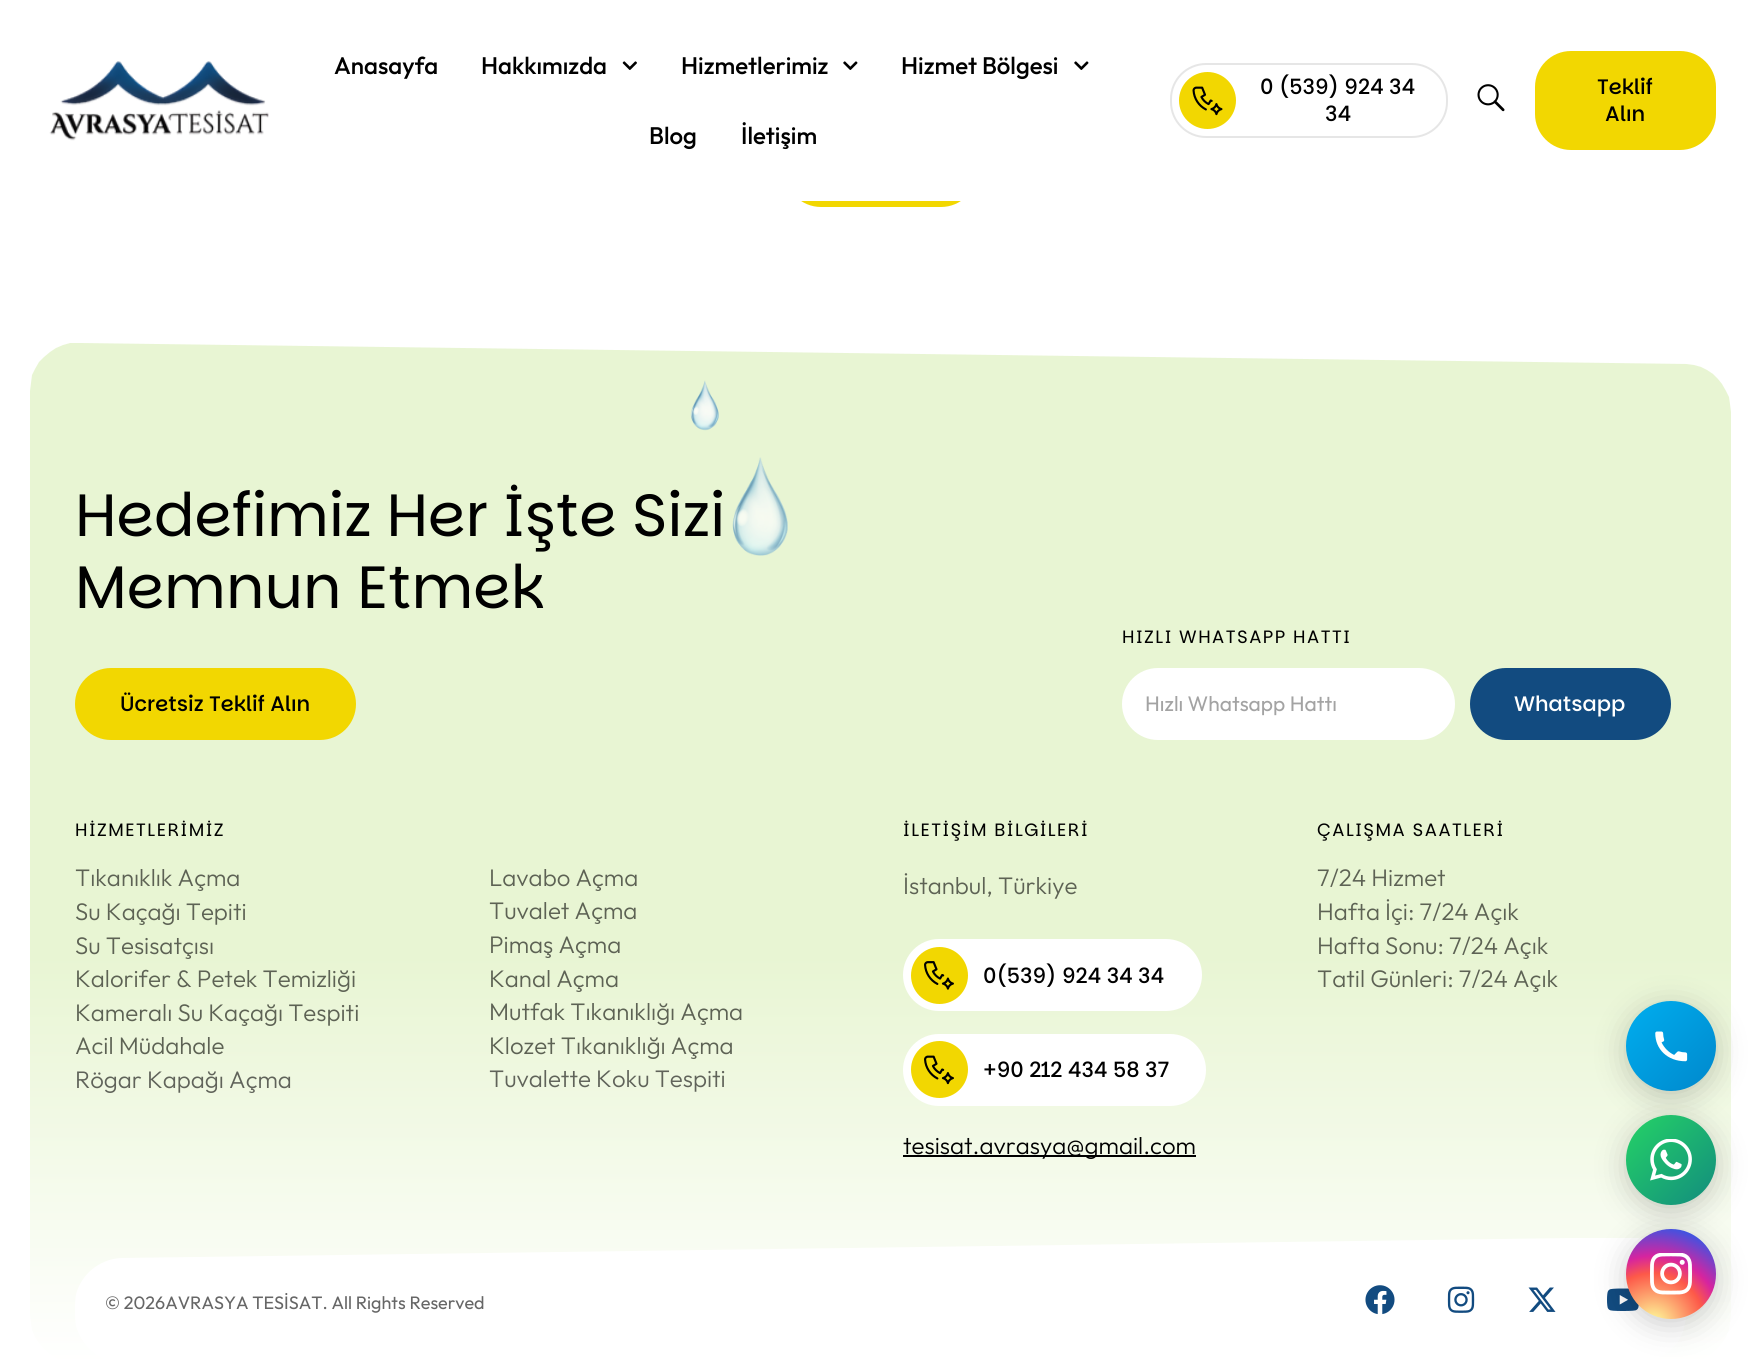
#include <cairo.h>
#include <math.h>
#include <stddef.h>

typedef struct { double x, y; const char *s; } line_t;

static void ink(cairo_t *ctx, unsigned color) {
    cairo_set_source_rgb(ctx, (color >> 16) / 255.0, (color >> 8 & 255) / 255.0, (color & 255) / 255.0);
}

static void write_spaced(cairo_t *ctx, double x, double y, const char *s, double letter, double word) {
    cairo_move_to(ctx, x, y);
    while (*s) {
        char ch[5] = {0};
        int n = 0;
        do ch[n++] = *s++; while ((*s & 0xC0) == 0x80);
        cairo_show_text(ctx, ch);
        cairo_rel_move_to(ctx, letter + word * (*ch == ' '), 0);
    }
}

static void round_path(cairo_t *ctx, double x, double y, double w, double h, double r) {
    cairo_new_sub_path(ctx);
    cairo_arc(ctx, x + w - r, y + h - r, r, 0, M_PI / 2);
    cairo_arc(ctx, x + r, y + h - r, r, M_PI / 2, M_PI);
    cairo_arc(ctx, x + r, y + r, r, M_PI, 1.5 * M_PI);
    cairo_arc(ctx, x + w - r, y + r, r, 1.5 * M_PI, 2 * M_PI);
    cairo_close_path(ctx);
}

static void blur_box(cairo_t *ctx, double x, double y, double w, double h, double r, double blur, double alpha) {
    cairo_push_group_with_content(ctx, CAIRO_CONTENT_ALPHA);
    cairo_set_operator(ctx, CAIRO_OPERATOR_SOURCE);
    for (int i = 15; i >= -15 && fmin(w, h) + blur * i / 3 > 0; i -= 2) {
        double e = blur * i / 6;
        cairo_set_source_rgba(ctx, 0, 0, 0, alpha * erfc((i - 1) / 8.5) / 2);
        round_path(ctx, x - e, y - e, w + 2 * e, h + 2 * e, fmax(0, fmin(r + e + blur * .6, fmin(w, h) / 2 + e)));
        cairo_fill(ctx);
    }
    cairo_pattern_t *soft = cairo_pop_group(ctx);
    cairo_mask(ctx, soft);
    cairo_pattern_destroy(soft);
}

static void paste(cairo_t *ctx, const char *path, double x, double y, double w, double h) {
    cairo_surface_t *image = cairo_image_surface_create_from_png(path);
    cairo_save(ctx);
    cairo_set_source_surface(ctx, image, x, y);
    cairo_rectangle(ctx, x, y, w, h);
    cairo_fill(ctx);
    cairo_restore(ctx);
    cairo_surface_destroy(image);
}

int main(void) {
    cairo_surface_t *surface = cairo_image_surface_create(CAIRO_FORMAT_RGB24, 1761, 1363);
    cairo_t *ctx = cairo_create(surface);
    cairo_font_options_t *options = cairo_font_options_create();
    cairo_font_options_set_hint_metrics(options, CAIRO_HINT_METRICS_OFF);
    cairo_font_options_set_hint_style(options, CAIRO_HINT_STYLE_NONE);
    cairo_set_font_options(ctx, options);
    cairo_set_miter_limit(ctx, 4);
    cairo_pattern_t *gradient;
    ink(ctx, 0xFFFFFF);
    cairo_paint(ctx);
    ink(ctx, 0xF2D701);
    round_path(ctx, 785, 134, 192, 73, 36);
    cairo_fill(ctx);
    ink(ctx, 0xFFFFFF);
    cairo_rectangle(ctx, 785, 134, 192, 67);
    cairo_fill(ctx);
    paste(ctx, "media/1.png", 49, 61, 220, 80);
    cairo_select_font_face(ctx, "Outfit Medium", CAIRO_FONT_SLANT_NORMAL, CAIRO_FONT_WEIGHT_NORMAL);
    cairo_set_font_size(ctx, 24);
    ink(ctx, 0x000000);
    cairo_move_to(ctx, 334, 74);
    cairo_show_text(ctx, "Anasayfa");
    cairo_move_to(ctx, 481, 74);
    cairo_show_text(ctx, "Hakkımızda");
    paste(ctx, "media/2.png", 622, 61, 15, 9);
    cairo_move_to(ctx, 681, 74);
    cairo_show_text(ctx, "Hizmetlerimiz");
    paste(ctx, "media/3.png", 843, 61, 15, 9);
    cairo_move_to(ctx, 901, 74);
    cairo_show_text(ctx, "Hizmet Bölgesi");
    paste(ctx, "media/3.png", 1074, 61, 15, 9);
    cairo_move_to(ctx, 649, 144);
    cairo_show_text(ctx, "Blog");
    cairo_move_to(ctx, 741, 144);
    cairo_show_text(ctx, "İletişim");
    round_path(ctx, 1171, 64, 276, 73, 35);
    ink(ctx, 0xE6E6E6);
    cairo_stroke(ctx);
    ink(ctx, 0xF2D701);
    cairo_arc(ctx, 1207.5, 100.5, 28.5, 0, 2 * M_PI);
    cairo_fill(ctx);
    paste(ctx, "media/4.png", 1192, 86, 31, 30);
    cairo_select_font_face(ctx, "Parkinsans Medium", CAIRO_FONT_SLANT_NORMAL, CAIRO_FONT_WEIGHT_NORMAL);
    cairo_set_font_size(ctx, 21);
    ink(ctx, 0x000000);
    cairo_move_to(ctx, 1260, 94);
    cairo_show_text(ctx, "0 (539) 924 34");
    cairo_move_to(ctx, 1325, 121);
    cairo_show_text(ctx, "34");
    paste(ctx, "media/5.png", 1477, 84, 28, 28);
    ink(ctx, 0xF2D701);
    round_path(ctx, 1535, 51, 181, 99, 36);
    cairo_fill(ctx);
    ink(ctx, 0x000000);
    cairo_move_to(ctx, 1597, 94);
    cairo_show_text(ctx, "Teklif");
    cairo_move_to(ctx, 1605, 121);
    cairo_show_text(ctx, "Alın");
    gradient = cairo_pattern_create_linear(881, 342, 881, 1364);
    cairo_pattern_add_color_stop_rgba(gradient, 0.6, 0.91, 0.961, 0.827, 1);
    cairo_pattern_add_color_stop_rgba(gradient, 1, 1, 1, 1, 1);
    cairo_set_source(ctx, gradient);
    cairo_pattern_destroy(gradient);
    cairo_new_path(ctx);
    cairo_move_to(ctx, 78, 343);
    cairo_line_to(ctx, 70, 343);
    cairo_line_to(ctx, 63, 345);
    cairo_line_to(ctx, 56, 348);
    cairo_line_to(ctx, 50, 352);
    cairo_line_to(ctx, 44, 357);
    cairo_line_to(ctx, 39, 362);
    cairo_line_to(ctx, 35, 369);
    cairo_line_to(ctx, 32, 375);
    cairo_line_to(ctx, 31, 383);
    cairo_line_to(ctx, 30, 391);
    cairo_line_to(ctx, 30, 1315);
    cairo_line_to(ctx, 31, 1323);
    cairo_line_to(ctx, 32, 1330);
    cairo_line_to(ctx, 35, 1337);
    cairo_line_to(ctx, 39, 1343);
    cairo_line_to(ctx, 44, 1349);
    cairo_line_to(ctx, 50, 1354);
    cairo_line_to(ctx, 56, 1358);
    cairo_line_to(ctx, 63, 1361);
    cairo_line_to(ctx, 70, 1362);
    cairo_line_to(ctx, 78, 1363);
    cairo_line_to(ctx, 1683, 1363);
    cairo_line_to(ctx, 1691, 1362);
    cairo_line_to(ctx, 1698, 1361);
    cairo_line_to(ctx, 1705, 1358);
    cairo_line_to(ctx, 1711, 1354);
    cairo_line_to(ctx, 1717, 1349);
    cairo_line_to(ctx, 1722, 1343);
    cairo_line_to(ctx, 1726, 1337);
    cairo_line_to(ctx, 1729, 1330);
    cairo_line_to(ctx, 1730, 1323);
    cairo_line_to(ctx, 1731, 1315);
    cairo_line_to(ctx, 1731, 412);
    cairo_line_to(ctx, 1730, 404);
    cairo_line_to(ctx, 1729, 397);
    cairo_line_to(ctx, 1726, 391);
    cairo_line_to(ctx, 1722, 384);
    cairo_line_to(ctx, 1718, 379);
    cairo_line_to(ctx, 1713, 374);
    cairo_line_to(ctx, 1707, 370);
    cairo_line_to(ctx, 1701, 367);
    cairo_line_to(ctx, 1694, 365);
    cairo_line_to(ctx, 1686, 364);
    cairo_close_path(ctx);
    cairo_fill(ctx);
    paste(ctx, "media/6.png", 690, 380, 29, 51);
    cairo_select_font_face(ctx, "Parkinsans", CAIRO_FONT_SLANT_NORMAL, CAIRO_FONT_WEIGHT_NORMAL);
    cairo_set_font_size(ctx, 60);
    ink(ctx, 0x000000);
    write_spaced(ctx, 75, 536, "Hedefimiz Her İşte Sizi", 0, -1);
    cairo_move_to(ctx, 75, 608);
    cairo_show_text(ctx, "Memnun Etmek");
    paste(ctx, "media/7.png", 732, 457, 56, 99);
    ink(ctx, 0xF2D701);
    round_path(ctx, 75, 668, 281, 72, 36);
    cairo_fill(ctx);
    cairo_select_font_face(ctx, "Parkinsans Medium", CAIRO_FONT_SLANT_NORMAL, CAIRO_FONT_WEIGHT_NORMAL);
    cairo_set_font_size(ctx, 21);
    ink(ctx, 0x000000);
    cairo_move_to(ctx, 120, 711);
    cairo_show_text(ctx, "Ücretsiz Teklif Alın");
    cairo_select_font_face(ctx, "Parkinsans", CAIRO_FONT_SLANT_NORMAL, CAIRO_FONT_WEIGHT_NORMAL);
    cairo_set_font_size(ctx, 18);
    write_spaced(ctx, 1122, 643, "HIZLI WHATSAPP HATTI", 1.5, 0);
    ink(ctx, 0xFFFFFF);
    round_path(ctx, 1122, 668, 333, 72, 36);
    cairo_fill(ctx);
    cairo_select_font_face(ctx, "Outfit", CAIRO_FONT_SLANT_NORMAL, CAIRO_FONT_WEIGHT_NORMAL);
    cairo_set_font_size(ctx, 21);
    ink(ctx, 0xA3A3A3);
    cairo_move_to(ctx, 1145, 711);
    cairo_show_text(ctx, "Hızlı Whatsapp Hattı");
    ink(ctx, 0x124B80);
    round_path(ctx, 1470, 668, 201, 72, 36);
    cairo_fill(ctx);
    cairo_select_font_face(ctx, "Parkinsans Medium", CAIRO_FONT_SLANT_NORMAL, CAIRO_FONT_WEIGHT_NORMAL);
    ink(ctx, 0xFFFFFF);
    cairo_move_to(ctx, 1514, 711);
    cairo_show_text(ctx, "Whatsapp");
    cairo_select_font_face(ctx, "Parkinsans", CAIRO_FONT_SLANT_NORMAL, CAIRO_FONT_WEIGHT_NORMAL);
    cairo_set_font_size(ctx, 18);
    ink(ctx, 0x000000);
    write_spaced(ctx, 75, 836, "HİZMETLERİMİZ", 1.5, 0);
    cairo_select_font_face(ctx, "Outfit Light", CAIRO_FONT_SLANT_NORMAL, CAIRO_FONT_WEIGHT_NORMAL);
    cairo_set_font_size(ctx, 24);
    ink(ctx, 0x5D6254);
    {
        static const line_t items[] = {
            {75, 886, "Tıkanıklık Açma"},
            {75, 920, "Su Kaçağı Tepiti"},
            {75, 954, "Su Tesisatçısı"},
            {75, 987, "Kalorifer & Petek Temizliği"},
            {75, 1021, "Kameralı Su Kaçağı Tespiti"},
            {75, 1054, "Acil Müdahale"},
        };
        for (size_t i = 0; i < sizeof items / sizeof *items; i++) {
            cairo_move_to(ctx, items[i].x, items[i].y);
            cairo_show_text(ctx, items[i].s);
        }
    }
    ink(ctx, 0x60635A);
    cairo_move_to(ctx, 75, 1088);
    cairo_show_text(ctx, "Rögar Kapağı Açma");
    ink(ctx, 0x5D6254);
    {
        static const line_t items[] = {
            {489, 886, "Lavabo Açma"},
            {489, 919, "Tuvalet Açma"},
            {489, 953, "Pimaş Açma"},
            {489, 987, "Kanal Açma"},
            {489, 1020, "Mutfak Tıkanıklığı Açma"},
            {489, 1054, "Klozet Tıkanıklığı Açma"},
        };
        for (size_t i = 0; i < sizeof items / sizeof *items; i++) {
            cairo_move_to(ctx, items[i].x, items[i].y);
            cairo_show_text(ctx, items[i].s);
        }
    }
    ink(ctx, 0x60635A);
    cairo_move_to(ctx, 489, 1087);
    cairo_show_text(ctx, "Tuvalette Koku Tespiti");
    cairo_select_font_face(ctx, "Parkinsans", CAIRO_FONT_SLANT_NORMAL, CAIRO_FONT_WEIGHT_NORMAL);
    cairo_set_font_size(ctx, 18);
    ink(ctx, 0x000000);
    write_spaced(ctx, 903, 836, "İLETİŞİM BİLGİLERİ", 1.5, 0);
    cairo_select_font_face(ctx, "Outfit Light", CAIRO_FONT_SLANT_NORMAL, CAIRO_FONT_WEIGHT_NORMAL);
    cairo_set_font_size(ctx, 24);
    ink(ctx, 0x5D6254);
    cairo_move_to(ctx, 903, 894);
    cairo_show_text(ctx, "İstanbul, Türkiye");
    ink(ctx, 0xFFFFFF);
    round_path(ctx, 903, 939, 299, 72, 36);
    cairo_fill(ctx);
    ink(ctx, 0xF2D701);
    cairo_arc(ctx, 939.5, 975.5, 28.5, 0, 2 * M_PI);
    cairo_fill(ctx);
    paste(ctx, "media/8.png", 924, 961, 30, 29);
    cairo_select_font_face(ctx, "Parkinsans Medium", CAIRO_FONT_SLANT_NORMAL, CAIRO_FONT_WEIGHT_NORMAL);
    cairo_set_font_size(ctx, 21);
    ink(ctx, 0x000000);
    cairo_move_to(ctx, 983, 983);
    cairo_show_text(ctx, "0(539) 924 34 34");
    ink(ctx, 0xFFFFFF);
    round_path(ctx, 903, 1034, 303, 72, 36);
    cairo_fill(ctx);
    ink(ctx, 0xF2D701);
    cairo_arc(ctx, 939.5, 1069.5, 28.5, 0, 2 * M_PI);
    cairo_fill(ctx);
    paste(ctx, "media/9.png", 924, 1055, 30, 30);
    ink(ctx, 0x000000);
    cairo_move_to(ctx, 983, 1077);
    cairo_show_text(ctx, "+90 212 434 58 37");
    cairo_rectangle(ctx, 903, 1155, 293, 2);
    cairo_fill(ctx);
    cairo_select_font_face(ctx, "Outfit Light", CAIRO_FONT_SLANT_NORMAL, CAIRO_FONT_WEIGHT_NORMAL);
    cairo_set_font_size(ctx, 24);
    cairo_move_to(ctx, 903, 1154);
    cairo_show_text(ctx, "tesisat.avrasya@gmail.com");
    cairo_select_font_face(ctx, "Parkinsans", CAIRO_FONT_SLANT_NORMAL, CAIRO_FONT_WEIGHT_NORMAL);
    cairo_set_font_size(ctx, 18);
    write_spaced(ctx, 1317, 836, "ÇALIŞMA SAATLERİ", 1.5, 0);
    cairo_select_font_face(ctx, "Outfit Light", CAIRO_FONT_SLANT_NORMAL, CAIRO_FONT_WEIGHT_NORMAL);
    cairo_set_font_size(ctx, 24);
    ink(ctx, 0x5D6254);
    {
        static const line_t items[] = {
            {1317, 886, "7/24 Hizmet"},
            {1317, 920, "Hafta İçi: 7/24 Açık"},
            {1317, 954, "Hafta Sonu: 7/24 Açık"},
            {1317, 987, "Tatil Günleri: 7/24 Açık"},
        };
        for (size_t i = 0; i < sizeof items / sizeof *items; i++) {
            cairo_move_to(ctx, items[i].x, items[i].y);
            cairo_show_text(ctx, items[i].s);
        }
    }
    ink(ctx, 0xFFFFFF);
    cairo_new_path(ctx);
    cairo_move_to(ctx, 123, 1258);
    cairo_curve_to(ctx, 103, 1258, 84, 1271, 77, 1291);
    cairo_curve_to(ctx, 75, 1297, 75, 1304, 75, 1310);
    cairo_curve_to(ctx, 75, 1315, 75, 1321, 76, 1326);
    cairo_curve_to(ctx, 82, 1347, 101, 1363, 123, 1363);
    cairo_line_to(ctx, 1641, 1363);
    cairo_curve_to(ctx, 1663, 1361, 1682, 1345, 1685, 1323);
    cairo_curve_to(ctx, 1687, 1315, 1686, 1308, 1686, 1300);
    cairo_curve_to(ctx, 1686, 1287, 1687, 1276, 1680, 1263);
    cairo_curve_to(ctx, 1672, 1247, 1656, 1239, 1638, 1238);
    cairo_line_to(ctx, 1572, 1238);
    cairo_close_path(ctx);
    cairo_fill(ctx);
    cairo_select_font_face(ctx, "Outfit", CAIRO_FONT_SLANT_NORMAL, CAIRO_FONT_WEIGHT_NORMAL);
    cairo_set_font_size(ctx, 18);
    ink(ctx, 0x666666);
    cairo_move_to(ctx, 105, 1309);
    cairo_show_text(ctx, "© 2026AVRASYA TESİSAT. All Rights Reserved");
    paste(ctx, "media/10.png", 1365, 1285, 30, 30);
    paste(ctx, "media/11.png", 1447, 1286, 28, 27);
    paste(ctx, "media/12.png", 1528, 1287, 28, 25);
    paste(ctx, "media/13.png", 1607, 1288, 32, 23);
    ink(ctx, 0x000000);
    blur_box(ctx, 1626, 1007, 90, 90, 45, 15, 0.2);
    gradient = cairo_pattern_create_linear(1626, 1001, 1716, 1091);
    cairo_pattern_add_color_stop_rgba(gradient, 0, 0, 0.682, 0.937, 1);
    cairo_pattern_add_color_stop_rgba(gradient, 1, 0, 0.533, 0.8, 1);
    cairo_set_source(ctx, gradient);
    cairo_pattern_destroy(gradient);
    cairo_arc(ctx, 1671, 1046, 45, 0, 2 * M_PI);
    cairo_fill(ctx);
    paste(ctx, "media/14.png", 1655, 1031, 33, 31);
    ink(ctx, 0x000000);
    blur_box(ctx, 1626, 1121, 90, 90, 45, 15, 0.2);
    gradient = cairo_pattern_create_linear(1626, 1115, 1716, 1205);
    cairo_pattern_add_color_stop_rgba(gradient, 0, 0.145, 0.827, 0.4, 1);
    cairo_pattern_add_color_stop_rgba(gradient, 1, 0.071, 0.549, 0.494, 1);
    cairo_set_source(ctx, gradient);
    cairo_pattern_destroy(gradient);
    cairo_arc(ctx, 1671, 1160, 45, 0, 2 * M_PI);
    cairo_fill(ctx);
    paste(ctx, "media/15.png", 1650, 1139, 42, 42);
    ink(ctx, 0x000000);
    blur_box(ctx, 1626, 1235, 90, 90, 45, 15, 0.2);
    gradient = cairo_pattern_create_radial(1653, 1325, 0, 1653, 1325, 115);
    cairo_pattern_add_color_stop_rgba(gradient, 0, 0.992, 0.957, 0.592, 1);
    cairo_pattern_add_color_stop_rgba(gradient, 0.05, 0.992, 0.957, 0.592, 1);
    cairo_pattern_add_color_stop_rgba(gradient, 0.45, 0.992, 0.349, 0.286, 1);
    cairo_pattern_add_color_stop_rgba(gradient, 0.6, 0.839, 0.141, 0.624, 1);
    cairo_pattern_add_color_stop_rgba(gradient, 0.9, 0.157, 0.353, 0.922, 1);
    cairo_set_source(ctx, gradient);
    cairo_pattern_destroy(gradient);
    cairo_arc(ctx, 1671, 1274, 45, 0, 2 * M_PI);
    cairo_fill(ctx);
    paste(ctx, "media/16.png", 1650, 1253, 42, 42);
    cairo_surface_write_to_png(surface, "image.png");
    cairo_font_options_destroy(options);
    cairo_destroy(ctx);
    cairo_surface_destroy(surface);
    return 0;
}
